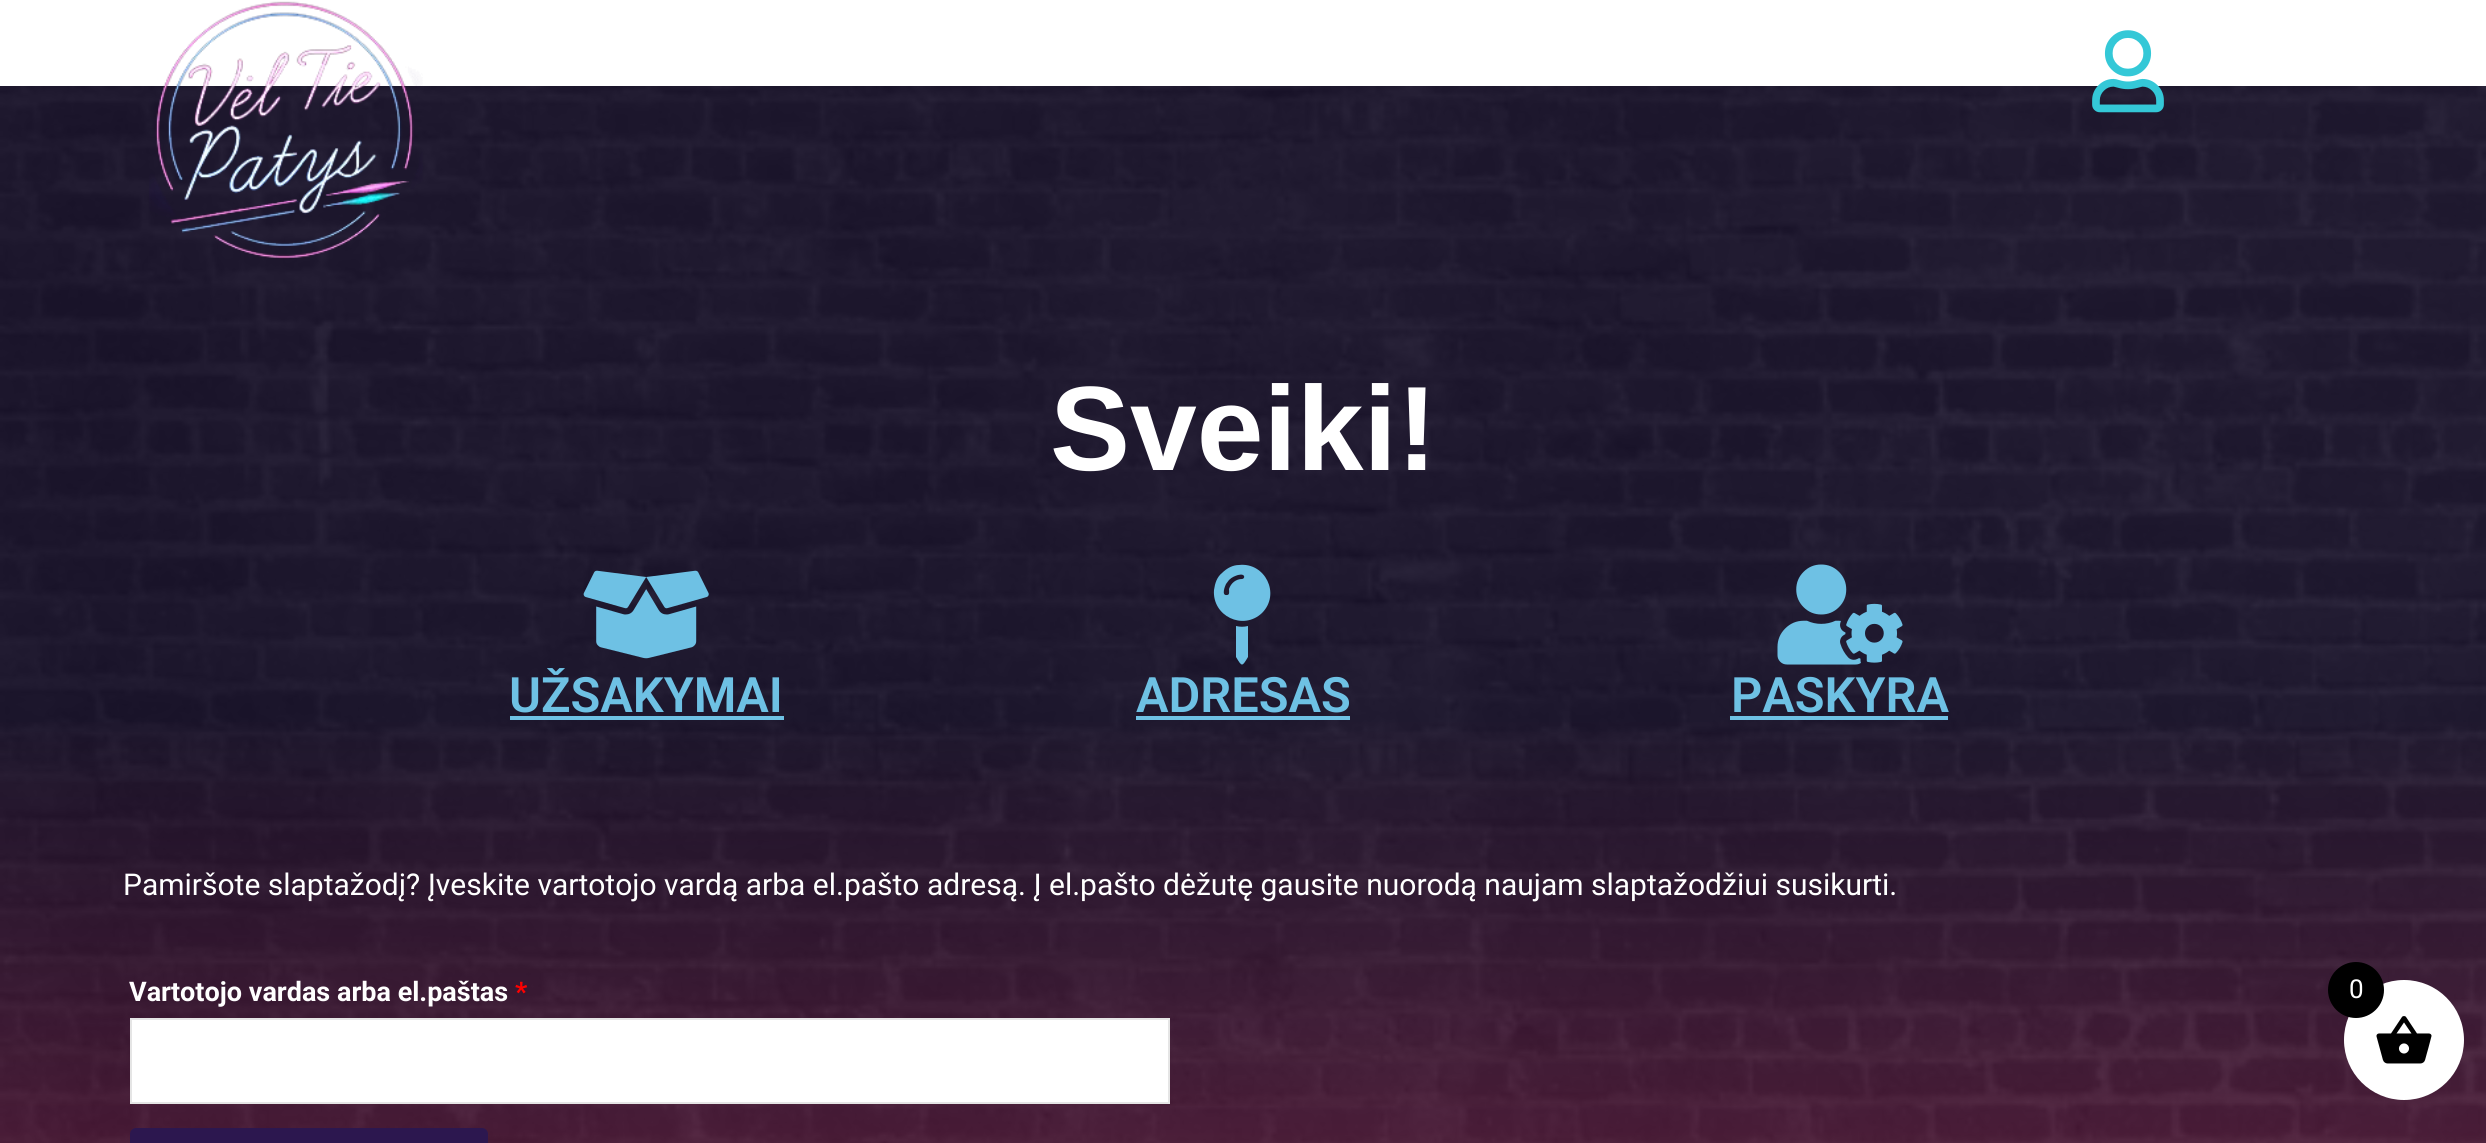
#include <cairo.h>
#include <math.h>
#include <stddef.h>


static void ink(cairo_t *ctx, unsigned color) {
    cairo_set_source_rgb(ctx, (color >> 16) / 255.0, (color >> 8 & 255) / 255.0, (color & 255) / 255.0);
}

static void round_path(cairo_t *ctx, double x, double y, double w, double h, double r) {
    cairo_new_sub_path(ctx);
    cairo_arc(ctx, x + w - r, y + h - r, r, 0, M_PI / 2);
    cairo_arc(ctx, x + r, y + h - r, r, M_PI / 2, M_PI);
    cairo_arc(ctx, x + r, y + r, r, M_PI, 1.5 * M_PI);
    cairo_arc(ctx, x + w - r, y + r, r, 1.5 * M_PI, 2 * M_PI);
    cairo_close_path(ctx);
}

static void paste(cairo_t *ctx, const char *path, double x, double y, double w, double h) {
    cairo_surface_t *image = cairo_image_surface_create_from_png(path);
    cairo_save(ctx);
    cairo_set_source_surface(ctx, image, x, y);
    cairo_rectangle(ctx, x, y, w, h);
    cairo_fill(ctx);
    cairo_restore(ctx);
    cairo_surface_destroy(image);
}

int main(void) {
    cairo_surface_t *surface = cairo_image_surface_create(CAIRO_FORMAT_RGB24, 2486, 1143);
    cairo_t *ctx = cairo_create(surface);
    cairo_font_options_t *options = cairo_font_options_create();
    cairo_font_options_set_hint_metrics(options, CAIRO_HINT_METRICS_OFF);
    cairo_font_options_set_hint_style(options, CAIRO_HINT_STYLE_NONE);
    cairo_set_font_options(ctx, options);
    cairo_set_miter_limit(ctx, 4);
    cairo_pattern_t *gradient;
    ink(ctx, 0xFFFFFF);
    cairo_paint(ctx);
    paste(ctx, "media/3.png", 0, 86, 2486, 1057);
    gradient = cairo_pattern_create_linear(1243, 86, 1243, 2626);
    cairo_pattern_add_color_stop_rgba(gradient, 0.25, 0.102, 0.075, 0.169, 0.9);
    cairo_pattern_add_color_stop_rgba(gradient, 1, 0.949, 0.161, 0.357, 0.9);
    cairo_set_source(ctx, gradient);
    cairo_pattern_destroy(gradient);
    cairo_rectangle(ctx, 0, 86, 2486, 1057);
    cairo_fill(ctx);
    paste(ctx, "media/1.png", 149, 1, 274, 258);
    paste(ctx, "media/2.png", 2092, 30, 72, 83);
    cairo_select_font_face(ctx, "Liberation Sans", CAIRO_FONT_SLANT_NORMAL, CAIRO_FONT_WEIGHT_BOLD);
    cairo_set_font_size(ctx, 120);
    ink(ctx, 0xFFFFFF);
    cairo_move_to(ctx, 1050, 470);
    cairo_show_text(ctx, "Sveiki!");
    paste(ctx, "media/4.png", 583, 570, 126, 89);
    cairo_select_font_face(ctx, "Roboto SemiBold", CAIRO_FONT_SLANT_NORMAL, CAIRO_FONT_WEIGHT_NORMAL);
    cairo_set_font_size(ctx, 48.75);
    ink(ctx, 0x6EC1E4);
    cairo_move_to(ctx, 509, 712);
    cairo_show_text(ctx, "UŽSAKYMAI");
    cairo_rectangle(ctx, 510, 716, 274, 4);
    cairo_fill(ctx);
    cairo_new_path(ctx);
    cairo_move_to(ctx, 1236, 626);
    cairo_curve_to(ctx, 1240, 627, 1244, 627, 1248, 626);
    cairo_line_to(ctx, 1248, 657);
    cairo_curve_to(ctx, 1242, 667, 1242, 667, 1236, 657);
    cairo_close_path(ctx);
    cairo_move_to(ctx, 1222, 573);
    cairo_curve_to(ctx, 1227, 568, 1233, 565, 1239, 565);
    cairo_curve_to(ctx, 1265, 562, 1281, 594, 1262, 613);
    cairo_curve_to(ctx, 1243, 631, 1212, 616, 1214, 590);
    cairo_curve_to(ctx, 1215, 583, 1217, 577, 1222, 573);
    cairo_close_path(ctx);
    cairo_move_to(ctx, 1242, 579);
    cairo_curve_to(ctx, 1245, 579, 1246, 573, 1238, 575);
    cairo_curve_to(ctx, 1235, 576, 1232, 577, 1229, 580);
    cairo_line_to(ctx, 1226, 584);
    cairo_curve_to(ctx, 1225, 586, 1221, 596, 1227, 595);
    cairo_curve_to(ctx, 1230, 595, 1229, 591, 1229, 589);
    cairo_curve_to(ctx, 1231, 583, 1236, 579, 1242, 579);
    cairo_close_path(ctx);
    cairo_fill(ctx);
    cairo_move_to(ctx, 1136, 712);
    cairo_show_text(ctx, "ADRESAS");
    cairo_rectangle(ctx, 1136, 716, 214, 4);
    cairo_fill(ctx);
    paste(ctx, "media/5.png", 1777, 564, 126, 101);
    cairo_move_to(ctx, 1731, 712);
    cairo_show_text(ctx, "PASKYRA");
    cairo_rectangle(ctx, 1730, 716, 218, 4);
    cairo_fill(ctx);
    cairo_select_font_face(ctx, "Roboto", CAIRO_FONT_SLANT_NORMAL, CAIRO_FONT_WEIGHT_NORMAL);
    cairo_set_font_size(ctx, 30);
    ink(ctx, 0xFFFFFF);
    cairo_move_to(ctx, 123, 895);
    cairo_show_text(ctx, "Pamiršote slaptažodį? Įveskite vartotojo vardą arba el.pašto adresą. Į el.pašto dėžutę gausite nuorodą naujam slaptažodžiui susikurti.");
    cairo_select_font_face(ctx, "Roboto", CAIRO_FONT_SLANT_NORMAL, CAIRO_FONT_WEIGHT_BOLD);
    cairo_set_font_size(ctx, 27);
    cairo_move_to(ctx, 129, 1001);
    cairo_show_text(ctx, "Vartotojo vardas arba el.paštas");
    ink(ctx, 0xFF0000);
    cairo_move_to(ctx, 515, 1001);
    cairo_show_text(ctx, "*");
    ink(ctx, 0xFFFFFF);
    cairo_rectangle(ctx, 131, 1019, 1038, 84);
    cairo_fill_preserve(ctx);
    ink(ctx, 0xE5E5E5);
    cairo_stroke(ctx);
    ink(ctx, 0x2C174F);
    round_path(ctx, 130, 1128, 358, 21, 6);
    cairo_fill(ctx);
    ink(ctx, 0xFFFFFF);
    cairo_arc(ctx, 2404, 1040, 60, 0, 2 * M_PI);
    cairo_fill(ctx);
    paste(ctx, "media/6.png", 2376, 1016, 56, 48);
    ink(ctx, 0x000000);
    cairo_arc(ctx, 2356, 990, 28, 0, 2 * M_PI);
    cairo_fill(ctx);
    cairo_select_font_face(ctx, "Roboto", CAIRO_FONT_SLANT_NORMAL, CAIRO_FONT_WEIGHT_NORMAL);
    cairo_set_font_size(ctx, 26);
    ink(ctx, 0xFFFFFF);
    cairo_move_to(ctx, 2349, 998);
    cairo_show_text(ctx, "0");
    cairo_surface_write_to_png(surface, "image.png");
    cairo_font_options_destroy(options);
    cairo_destroy(ctx);
    cairo_surface_destroy(surface);
    return 0;
}
